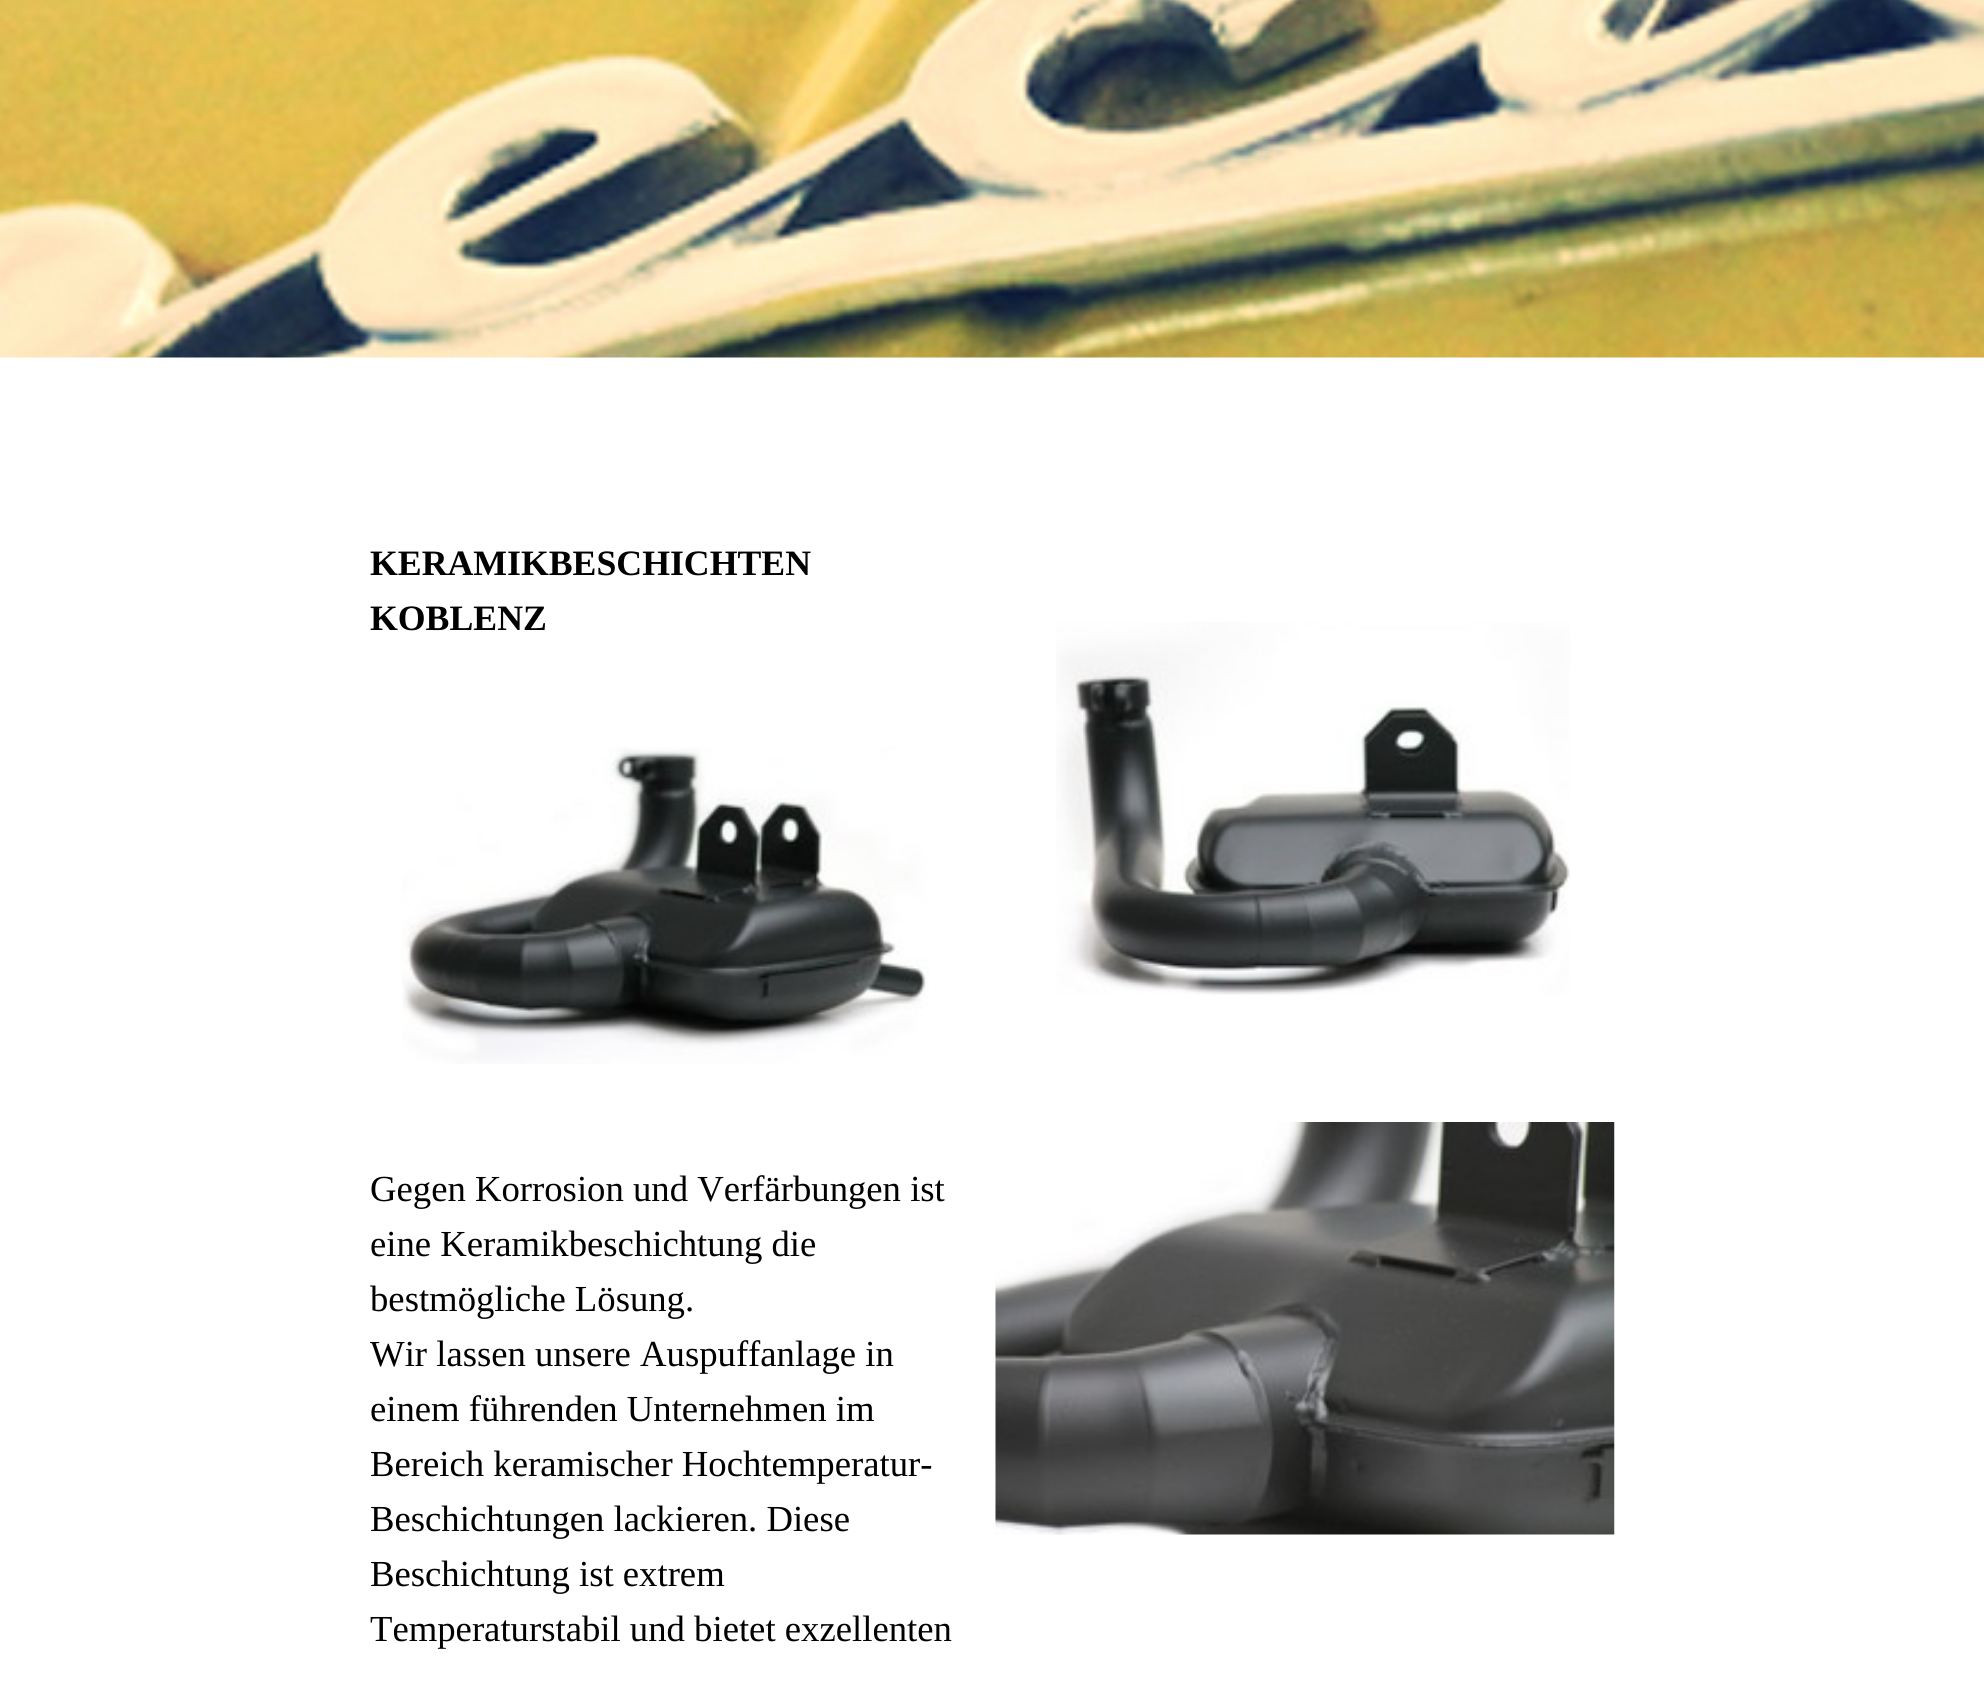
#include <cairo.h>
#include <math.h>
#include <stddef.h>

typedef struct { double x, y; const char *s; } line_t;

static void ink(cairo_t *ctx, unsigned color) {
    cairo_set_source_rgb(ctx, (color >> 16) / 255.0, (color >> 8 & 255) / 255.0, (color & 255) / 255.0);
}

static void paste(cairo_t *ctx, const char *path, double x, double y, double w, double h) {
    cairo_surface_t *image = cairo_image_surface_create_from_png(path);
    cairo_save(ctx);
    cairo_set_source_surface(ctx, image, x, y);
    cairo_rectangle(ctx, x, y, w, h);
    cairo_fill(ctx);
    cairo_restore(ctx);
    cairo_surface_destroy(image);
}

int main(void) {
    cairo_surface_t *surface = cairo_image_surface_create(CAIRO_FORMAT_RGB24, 1984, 1684);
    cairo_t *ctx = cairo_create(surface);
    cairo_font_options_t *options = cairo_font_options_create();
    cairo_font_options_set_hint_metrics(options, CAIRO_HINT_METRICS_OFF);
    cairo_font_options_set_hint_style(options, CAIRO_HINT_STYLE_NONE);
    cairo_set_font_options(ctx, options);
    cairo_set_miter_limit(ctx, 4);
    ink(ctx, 0xFFFFFF);
    cairo_paint(ctx);
    paste(ctx, "media/1.png", 0, 0, 1984, 358);
    cairo_select_font_face(ctx, "Liberation Serif", CAIRO_FONT_SLANT_NORMAL, CAIRO_FONT_WEIGHT_BOLD);
    cairo_set_font_size(ctx, 35.75);
    ink(ctx, 0x000000);
    cairo_move_to(ctx, 370, 575);
    cairo_show_text(ctx, "KERAMIKBESCHICHTEN");
    cairo_move_to(ctx, 370, 630);
    cairo_show_text(ctx, "KOBLENZ");
    paste(ctx, "media/2.png", 402, 747, 527, 317);
    cairo_select_font_face(ctx, "Liberation Serif", CAIRO_FONT_SLANT_NORMAL, CAIRO_FONT_WEIGHT_NORMAL);
    cairo_set_font_size(ctx, 36.7);
    {
        static const line_t items[] = {
            {370, 1201, "Gegen Korrosion und Verfärbungen ist"},
            {370, 1256, "eine Keramikbeschichtung die"},
            {370, 1311, "bestmögliche Lösung."},
            {370, 1366, "Wir lassen unsere Auspuffanlage in"},
            {370, 1421, "einem führenden Unternehmen im"},
            {370, 1476, "Bereich keramischer Hochtemperatur-"},
            {370, 1531, "Beschichtungen lackieren. Diese"},
            {370, 1586, "Beschichtung ist extrem"},
            {370, 1641, "Temperaturstabil und bietet exzellenten"},
        };
        for (size_t i = 0; i < sizeof items / sizeof *items; i++) {
            cairo_move_to(ctx, items[i].x, items[i].y);
            cairo_show_text(ctx, items[i].s);
        }
    }
    paste(ctx, "media/3.png", 1056, 622, 514, 373);
    paste(ctx, "media/4.png", 995, 1122, 620, 413);
    cairo_surface_write_to_png(surface, "image.png");
    cairo_font_options_destroy(options);
    cairo_destroy(ctx);
    cairo_surface_destroy(surface);
    return 0;
}
